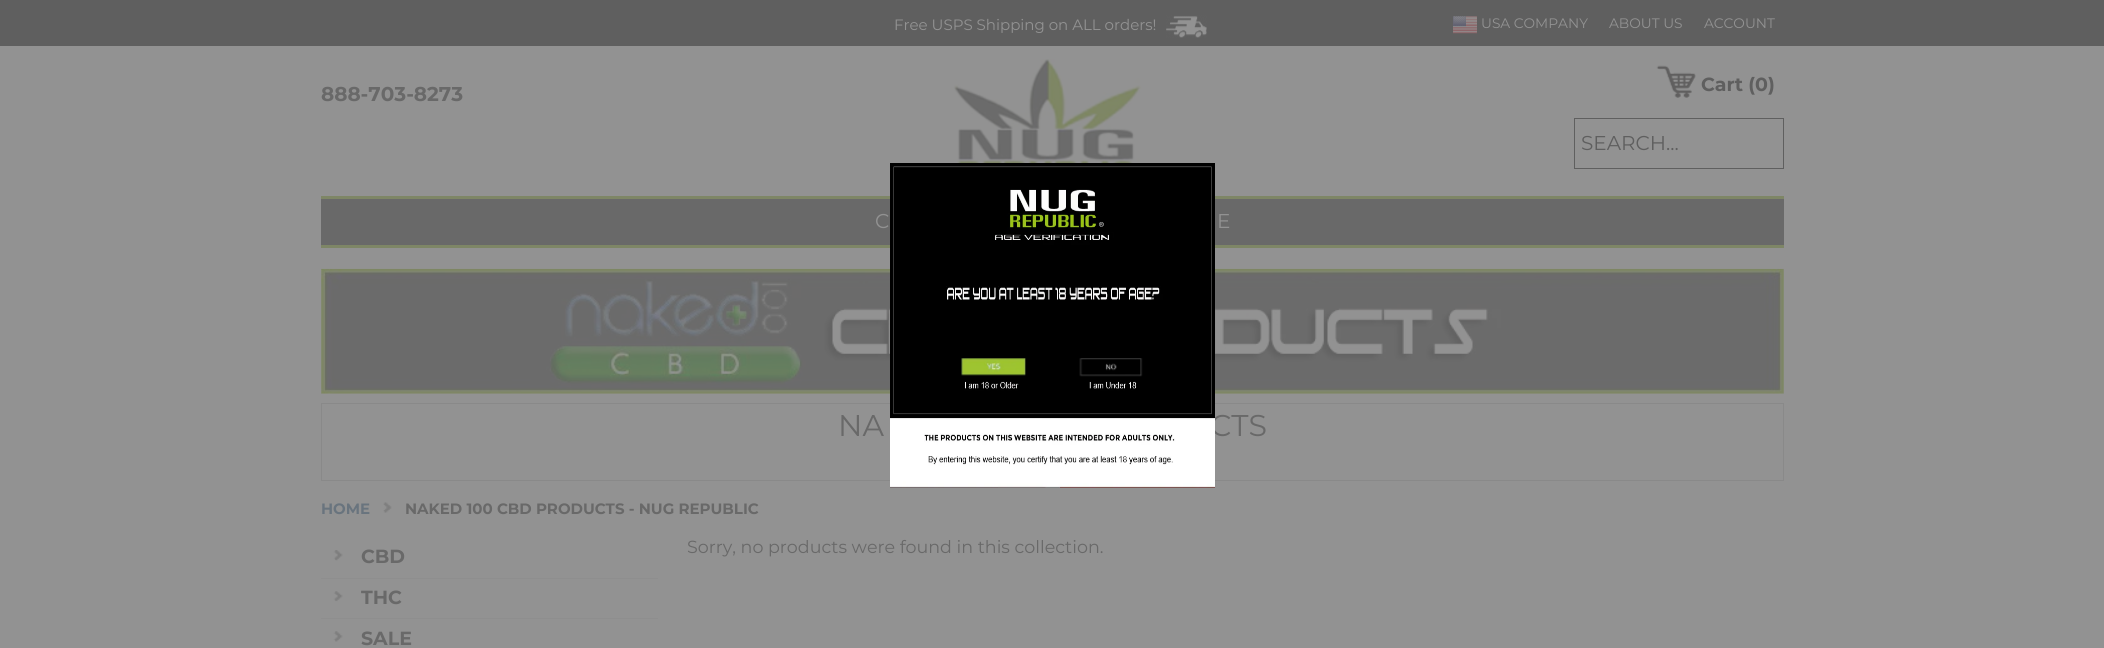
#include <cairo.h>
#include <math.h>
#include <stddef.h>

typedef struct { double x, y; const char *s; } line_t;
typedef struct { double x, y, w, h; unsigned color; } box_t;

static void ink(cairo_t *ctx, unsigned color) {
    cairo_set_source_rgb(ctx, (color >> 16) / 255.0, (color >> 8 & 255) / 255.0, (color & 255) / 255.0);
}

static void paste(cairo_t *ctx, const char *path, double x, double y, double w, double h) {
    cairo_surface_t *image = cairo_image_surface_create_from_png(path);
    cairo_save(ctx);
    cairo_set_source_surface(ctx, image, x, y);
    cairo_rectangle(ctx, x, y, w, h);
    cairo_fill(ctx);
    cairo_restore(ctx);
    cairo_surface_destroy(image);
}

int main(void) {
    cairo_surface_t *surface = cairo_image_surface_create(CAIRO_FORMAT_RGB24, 2104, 648);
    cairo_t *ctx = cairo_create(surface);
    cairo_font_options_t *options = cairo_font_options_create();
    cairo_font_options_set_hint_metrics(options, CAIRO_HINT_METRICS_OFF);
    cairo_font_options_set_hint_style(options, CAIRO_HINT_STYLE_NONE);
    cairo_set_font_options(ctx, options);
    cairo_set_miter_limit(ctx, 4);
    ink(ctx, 0x929292);
    cairo_paint(ctx);
    ink(ctx, 0x5F5F5F);
    cairo_rectangle(ctx, 0, 0, 2104, 46);
    cairo_fill(ctx);
    cairo_select_font_face(ctx, "Montserrat", CAIRO_FONT_SLANT_NORMAL, CAIRO_FONT_WEIGHT_NORMAL);
    cairo_set_font_size(ctx, 15);
    ink(ctx, 0x929292);
    cairo_move_to(ctx, 894, 30);
    cairo_show_text(ctx, "Free USPS Shipping on ALL orders!");
    paste(ctx, "media/1.png", 1166, 15, 41, 23);
    paste(ctx, "media/2.png", 1453, 16, 24, 18);
    cairo_set_font_size(ctx, 13.75);
    {
        static const line_t items[] = {
            {1481, 28, "USA COMPANY"},
            {1609, 28, "ABOUT US"},
            {1704, 28, "ACCOUNT"},
        };
        for (size_t i = 0; i < sizeof items / sizeof *items; i++) {
            cairo_move_to(ctx, items[i].x, items[i].y);
            cairo_show_text(ctx, items[i].s);
        }
    }
    cairo_select_font_face(ctx, "Montserrat", CAIRO_FONT_SLANT_NORMAL, CAIRO_FONT_WEIGHT_BOLD);
    cairo_set_font_size(ctx, 20);
    ink(ctx, 0x696969);
    cairo_move_to(ctx, 321, 101);
    cairo_show_text(ctx, "888-703-8273");
    paste(ctx, "media/3.png", 950, 59, 192, 104);
    paste(ctx, "media/4.png", 1656, 65, 40, 33);
    cairo_set_font_size(ctx, 19);
    ink(ctx, 0x5F5F5F);
    cairo_move_to(ctx, 1701, 91);
    cairo_show_text(ctx, "Cart (0)");
    cairo_rectangle(ctx, 1574.5, 118.5, 209, 50);
    cairo_set_line_width(ctx, 1);
    cairo_stroke(ctx);
    cairo_select_font_face(ctx, "Montserrat", CAIRO_FONT_SLANT_NORMAL, CAIRO_FONT_WEIGHT_NORMAL);
    cairo_set_font_size(ctx, 20);
    cairo_move_to(ctx, 1581, 150);
    cairo_show_text(ctx, "SEARCH...");
    {
        static const box_t items[] = {
            {321, 199, 1463, 46, 0x696969},
            {321, 196, 1463, 3, 0x7E8666},
            {321, 245, 1463, 3, 0x7E8666},
        };
        for (size_t i = 0; i < sizeof items / sizeof *items; i++) {
            ink(ctx, items[i].color);
            cairo_rectangle(ctx, items[i].x, items[i].y, items[i].w, items[i].h);
            cairo_fill(ctx);
        }
    }
    ink(ctx, 0x929292);
    cairo_move_to(ctx, 875, 228);
    cairo_show_text(ctx, "C");
    cairo_move_to(ctx, 1217, 228);
    cairo_show_text(ctx, "E");
    paste(ctx, "media/8.png", 321, 268, 1463, 126);
    cairo_rectangle(ctx, 321.5, 403.5, 1462, 77);
    ink(ctx, 0x898989);
    cairo_stroke(ctx);
    cairo_set_font_size(ctx, 30);
    ink(ctx, 0x696969);
    cairo_move_to(ctx, 1210, 436);
    cairo_show_text(ctx, "CTS");
    paste(ctx, "media/5.png", 890, 163, 325, 325);
    paste(ctx, "media/6.png", 961, 358, 65, 18);
    paste(ctx, "media/7.png", 1079, 358, 64, 19);
    cairo_move_to(ctx, 838, 436);
    cairo_show_text(ctx, "NA");
    cairo_select_font_face(ctx, "Montserrat", CAIRO_FONT_SLANT_NORMAL, CAIRO_FONT_WEIGHT_BOLD);
    cairo_set_font_size(ctx, 15);
    ink(ctx, 0x69747E);
    cairo_move_to(ctx, 321, 514);
    cairo_show_text(ctx, "HOME");
    paste(ctx, "media/9.png", 383, 502, 9, 11);
    ink(ctx, 0x696969);
    cairo_move_to(ctx, 405, 514);
    cairo_show_text(ctx, "NAKED 100 CBD PRODUCTS - NUG REPUBLIC");
    paste(ctx, "media/10.png", 333, 550, 10, 11);
    ink(ctx, 0x8E8E8E);
    cairo_rectangle(ctx, 321, 578, 337, 1);
    cairo_fill(ctx);
    cairo_set_font_size(ctx, 19);
    ink(ctx, 0x696969);
    cairo_move_to(ctx, 361, 563);
    cairo_show_text(ctx, "CBD");
    paste(ctx, "media/11.png", 333, 591, 10, 11);
    ink(ctx, 0x8E8E8E);
    cairo_rectangle(ctx, 321, 618, 337, 1);
    cairo_fill(ctx);
    ink(ctx, 0x696969);
    cairo_move_to(ctx, 361, 604);
    cairo_show_text(ctx, "THC");
    paste(ctx, "media/12.png", 333, 631, 10, 11);
    cairo_move_to(ctx, 361, 645);
    cairo_show_text(ctx, "SALE");
    cairo_select_font_face(ctx, "Montserrat", CAIRO_FONT_SLANT_NORMAL, CAIRO_FONT_WEIGHT_NORMAL);
    cairo_set_font_size(ctx, 17.5);
    cairo_move_to(ctx, 687, 553);
    cairo_show_text(ctx, "Sorry, no products were found in this collection.");
    cairo_surface_write_to_png(surface, "image.png");
    cairo_font_options_destroy(options);
    cairo_destroy(ctx);
    cairo_surface_destroy(surface);
    return 0;
}
